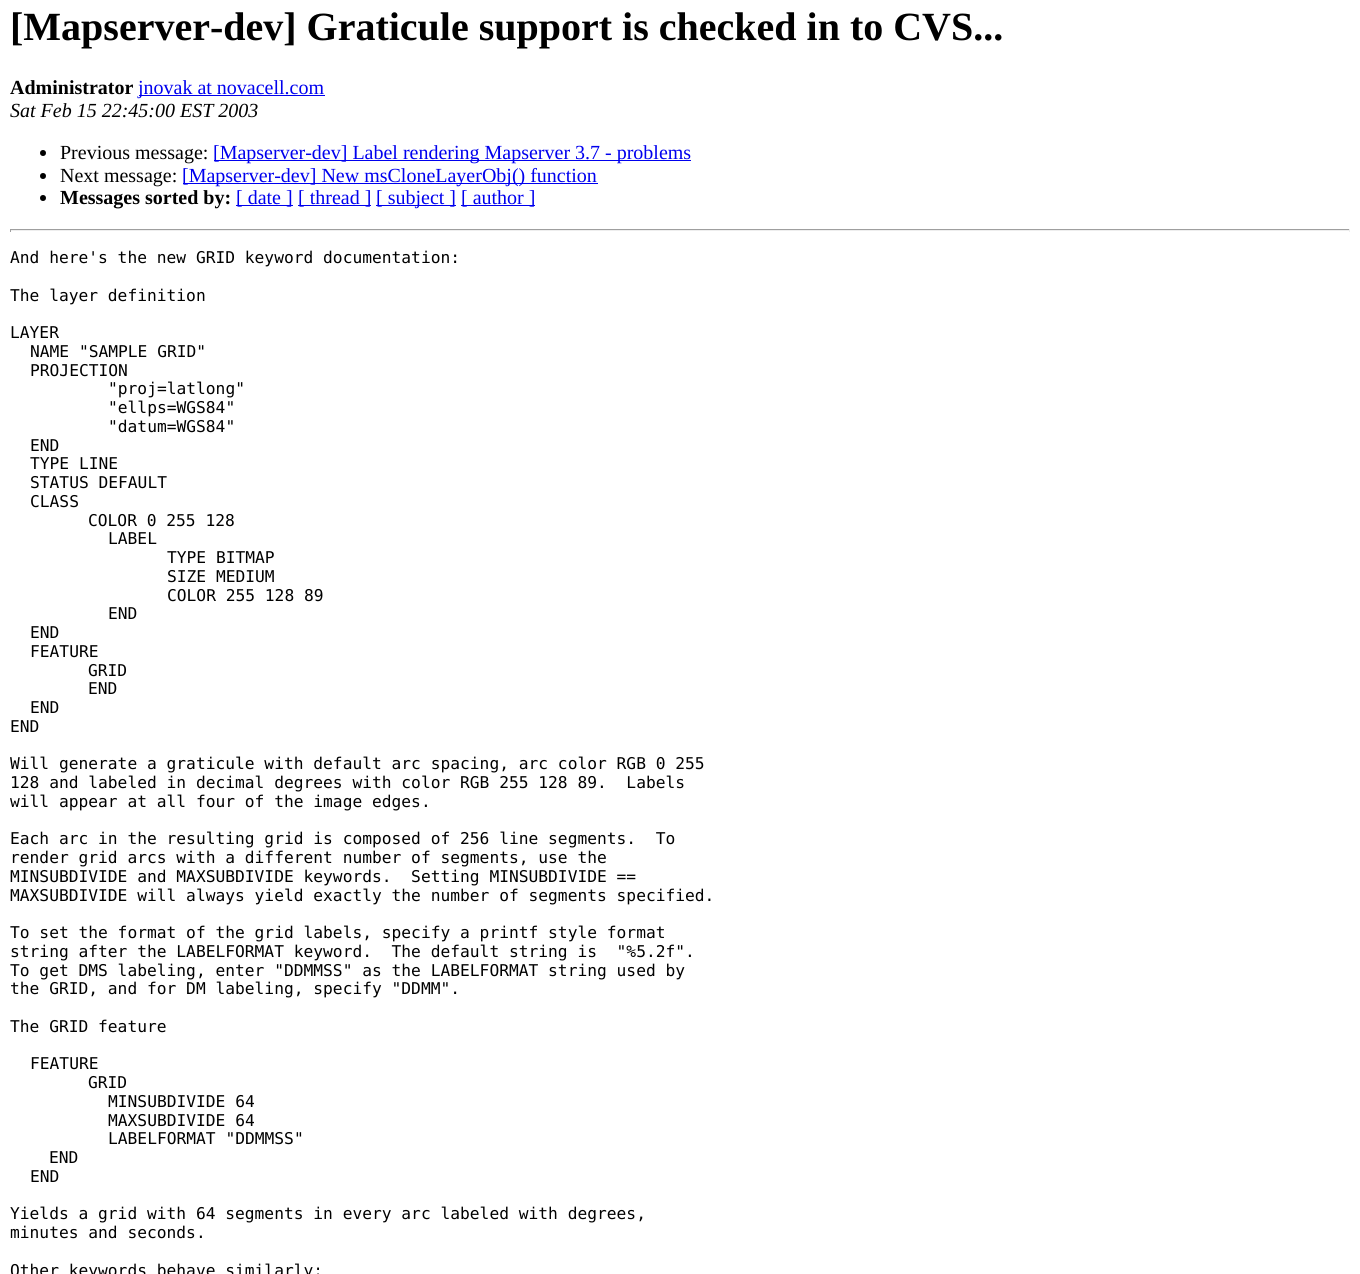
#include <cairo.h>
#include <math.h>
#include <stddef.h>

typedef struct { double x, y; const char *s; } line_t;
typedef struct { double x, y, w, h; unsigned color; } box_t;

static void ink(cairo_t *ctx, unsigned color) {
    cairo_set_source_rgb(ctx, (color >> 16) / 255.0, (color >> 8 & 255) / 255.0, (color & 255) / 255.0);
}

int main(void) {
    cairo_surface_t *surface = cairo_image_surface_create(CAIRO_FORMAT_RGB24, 1360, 1274);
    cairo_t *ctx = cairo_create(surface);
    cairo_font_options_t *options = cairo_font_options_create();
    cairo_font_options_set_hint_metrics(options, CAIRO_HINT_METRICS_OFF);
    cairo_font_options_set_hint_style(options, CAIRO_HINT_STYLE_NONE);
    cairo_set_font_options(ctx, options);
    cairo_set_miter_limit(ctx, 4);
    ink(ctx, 0xFFFFFF);
    cairo_paint(ctx);
    cairo_select_font_face(ctx, "Liberation Serif", CAIRO_FONT_SLANT_NORMAL, CAIRO_FONT_WEIGHT_BOLD);
    cairo_set_font_size(ctx, 40);
    ink(ctx, 0x000000);
    cairo_move_to(ctx, 10, 40);
    cairo_show_text(ctx, "[Mapserver-dev] Graticule support is checked in to CVS...");
    cairo_set_font_size(ctx, 20);
    cairo_move_to(ctx, 10, 94);
    cairo_show_text(ctx, "Administrator");
    ink(ctx, 0x0000EE);
    cairo_rectangle(ctx, 139, 95, 186, 1);
    cairo_fill(ctx);
    cairo_select_font_face(ctx, "Liberation Serif", CAIRO_FONT_SLANT_NORMAL, CAIRO_FONT_WEIGHT_NORMAL);
    cairo_move_to(ctx, 138, 94);
    cairo_show_text(ctx, "jnovak at novacell.com");
    cairo_select_font_face(ctx, "Liberation Serif", CAIRO_FONT_SLANT_ITALIC, CAIRO_FONT_WEIGHT_NORMAL);
    ink(ctx, 0x000000);
    cairo_move_to(ctx, 10, 117);
    cairo_show_text(ctx, "Sat Feb 15 22:45:00 EST 2003");
    cairo_new_path(ctx);
    cairo_arc(ctx, 43, 153, 3, 0, 2 * M_PI);
    cairo_fill(ctx);
    cairo_select_font_face(ctx, "Liberation Serif", CAIRO_FONT_SLANT_NORMAL, CAIRO_FONT_WEIGHT_NORMAL);
    cairo_move_to(ctx, 60, 159);
    cairo_show_text(ctx, "Previous message:");
    ink(ctx, 0x0000EE);
    cairo_rectangle(ctx, 214, 160, 477, 1);
    cairo_fill(ctx);
    cairo_move_to(ctx, 213, 159);
    cairo_show_text(ctx, "[Mapserver-dev] Label rendering Mapserver 3.7 - problems");
    ink(ctx, 0x000000);
    cairo_new_path(ctx);
    cairo_arc(ctx, 43, 176, 3, 0, 2 * M_PI);
    cairo_fill(ctx);
    cairo_move_to(ctx, 60, 182);
    cairo_show_text(ctx, "Next message:");
    ink(ctx, 0x0000EE);
    cairo_rectangle(ctx, 183, 183, 415, 1);
    cairo_fill(ctx);
    cairo_move_to(ctx, 182, 182);
    cairo_show_text(ctx, "[Mapserver-dev] New msCloneLayerObj() function");
    ink(ctx, 0x000000);
    cairo_new_path(ctx);
    cairo_arc(ctx, 43, 198, 3, 0, 2 * M_PI);
    cairo_fill(ctx);
    cairo_select_font_face(ctx, "Liberation Serif", CAIRO_FONT_SLANT_NORMAL, CAIRO_FONT_WEIGHT_BOLD);
    cairo_move_to(ctx, 60, 204);
    cairo_show_text(ctx, "Messages sorted by:");
    ink(ctx, 0x0000EE);
    cairo_rectangle(ctx, 236, 205, 57, 1);
    cairo_fill(ctx);
    cairo_select_font_face(ctx, "Liberation Serif", CAIRO_FONT_SLANT_NORMAL, CAIRO_FONT_WEIGHT_NORMAL);
    cairo_move_to(ctx, 236, 204);
    cairo_show_text(ctx, "[ date ]");
    cairo_rectangle(ctx, 298, 205, 73, 1);
    cairo_fill(ctx);
    cairo_move_to(ctx, 298, 204);
    cairo_show_text(ctx, "[ thread ]");
    cairo_rectangle(ctx, 376, 205, 80, 1);
    cairo_fill(ctx);
    cairo_move_to(ctx, 376, 204);
    cairo_show_text(ctx, "[ subject ]");
    cairo_rectangle(ctx, 461, 205, 74, 1);
    cairo_fill(ctx);
    cairo_move_to(ctx, 461, 204);
    cairo_show_text(ctx, "[ author ]");
    {
        static const box_t items[] = {
            {10, 229, 1340, 1, 0x9F9F9F},
            {1349, 229, 1, 3, 0xEEEEEE},
            {10, 230, 1340, 1, 0xEEEEEE},
            {10, 229, 1, 3, 0x9F9F9F},
        };
        for (size_t i = 0; i < sizeof items / sizeof *items; i++) {
            ink(ctx, items[i].color);
            cairo_rectangle(ctx, items[i].x, items[i].y, items[i].w, items[i].h);
            cairo_fill(ctx);
        }
    }
    cairo_select_font_face(ctx, "DejaVu Sans Mono", CAIRO_FONT_SLANT_NORMAL, CAIRO_FONT_WEIGHT_NORMAL);
    cairo_set_font_size(ctx, 16.25);
    ink(ctx, 0x000000);
    {
        static const line_t items[] = {
            {10, 263, "And here's the new GRID keyword documentation:"},
            {10, 301, "The layer definition"},
            {10, 338, "LAYER"},
            {30, 357, "NAME \"SAMPLE GRID\""},
            {30, 376, "PROJECTION"},
            {108, 394, "\"proj=latlong\""},
            {108, 413, "\"ellps=WGS84\""},
            {108, 432, "\"datum=WGS84\""},
            {30, 451, "END"},
            {30, 469, "TYPE LINE"},
            {30, 488, "STATUS DEFAULT"},
            {30, 507, "CLASS"},
            {88, 526, "COLOR 0 255 128"},
            {108, 544, "LABEL"},
            {167, 563, "TYPE BITMAP"},
            {167, 582, "SIZE MEDIUM"},
            {167, 601, "COLOR 255 128 89"},
            {108, 619, "END"},
            {30, 638, "END"},
            {30, 657, "FEATURE"},
            {88, 676, "GRID"},
            {88, 694, "END"},
            {30, 713, "END"},
            {10, 732, "END"},
            {10, 769, "Will generate a graticule with default arc spacing, arc color RGB 0 255"},
            {10, 788, "128 and labeled in decimal degrees with color RGB 255 128 89.  Labels"},
            {10, 807, "will appear at all four of the image edges."},
            {10, 844, "Each arc in the resulting grid is composed of 256 line segments.  To"},
            {10, 863, "render grid arcs with a different number of segments, use the"},
            {10, 882, "MINSUBDIVIDE and MAXSUBDIVIDE keywords.  Setting MINSUBDIVIDE =="},
            {10, 901, "MAXSUBDIVIDE will always yield exactly the number of segments specified."},
            {10, 938, "To set the format of the grid labels, specify a printf style format"},
            {10, 957, "string after the LABELFORMAT keyword.  The default string is  \"%5.2f\"."},
            {10, 976, "To get DMS labeling, enter \"DDMMSS\" as the LABELFORMAT string used by"},
            {10, 994, "the GRID, and for DM labeling, specify \"DDMM\"."},
            {10, 1032, "The GRID feature"},
            {30, 1069, "FEATURE"},
            {88, 1088, "GRID"},
            {108, 1107, "MINSUBDIVIDE 64"},
            {108, 1126, "MAXSUBDIVIDE 64"},
            {108, 1144, "LABELFORMAT \"DDMMSS\""},
            {49, 1163, "END"},
            {30, 1182, "END"},
            {10, 1219, "Yields a grid with 64 segments in every arc labeled with degrees,"},
            {10, 1238, "minutes and seconds."},
            {10, 1276, "Other keywords behave similarly:"},
        };
        for (size_t i = 0; i < sizeof items / sizeof *items; i++) {
            cairo_move_to(ctx, items[i].x, items[i].y);
            cairo_show_text(ctx, items[i].s);
        }
    }
    cairo_surface_write_to_png(surface, "image.png");
    cairo_font_options_destroy(options);
    cairo_destroy(ctx);
    cairo_surface_destroy(surface);
    return 0;
}
